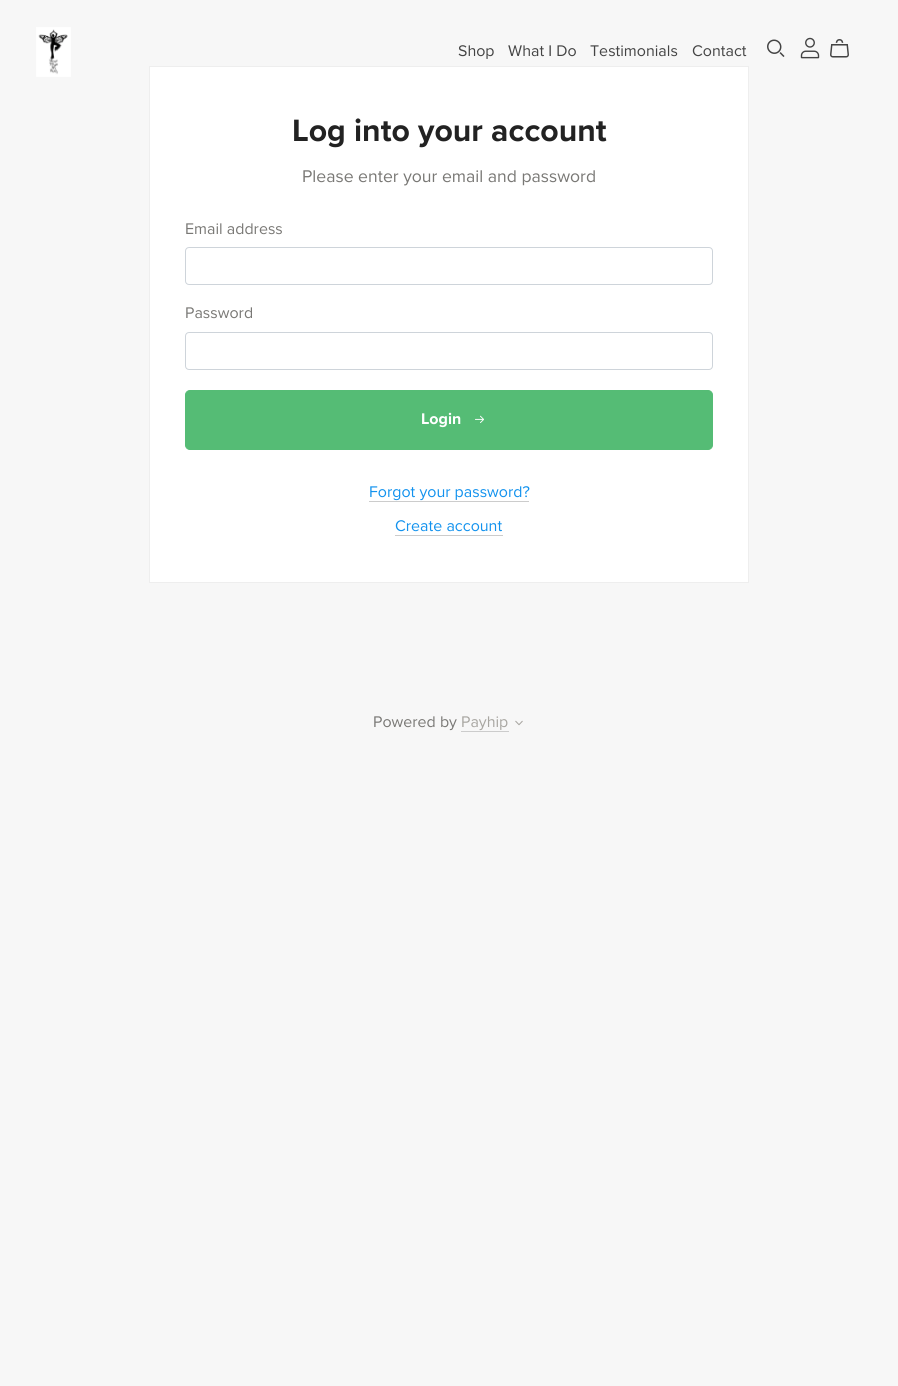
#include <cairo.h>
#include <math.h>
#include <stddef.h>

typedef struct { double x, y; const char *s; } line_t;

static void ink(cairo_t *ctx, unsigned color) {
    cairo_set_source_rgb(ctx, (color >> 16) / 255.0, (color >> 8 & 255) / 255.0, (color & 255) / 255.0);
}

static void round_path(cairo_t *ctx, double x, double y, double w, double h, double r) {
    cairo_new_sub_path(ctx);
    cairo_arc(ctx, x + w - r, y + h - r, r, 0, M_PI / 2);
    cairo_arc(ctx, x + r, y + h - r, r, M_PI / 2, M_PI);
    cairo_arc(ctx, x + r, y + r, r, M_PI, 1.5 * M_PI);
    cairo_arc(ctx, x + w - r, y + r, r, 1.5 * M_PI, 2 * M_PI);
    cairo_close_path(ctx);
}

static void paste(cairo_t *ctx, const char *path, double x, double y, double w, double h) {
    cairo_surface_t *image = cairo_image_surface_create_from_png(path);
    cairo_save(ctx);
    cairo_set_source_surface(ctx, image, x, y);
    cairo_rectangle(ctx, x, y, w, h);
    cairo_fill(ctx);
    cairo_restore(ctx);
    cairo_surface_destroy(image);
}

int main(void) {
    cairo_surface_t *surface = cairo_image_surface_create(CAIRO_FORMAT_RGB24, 898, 1386);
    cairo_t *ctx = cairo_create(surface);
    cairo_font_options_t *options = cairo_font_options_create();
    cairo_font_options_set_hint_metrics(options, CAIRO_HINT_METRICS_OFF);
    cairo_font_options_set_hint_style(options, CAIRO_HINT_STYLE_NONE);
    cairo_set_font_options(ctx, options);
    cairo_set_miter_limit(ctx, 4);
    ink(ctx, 0xF7F7F7);
    cairo_paint(ctx);
    paste(ctx, "media/1.png", 36, 27, 35, 50);
    cairo_select_font_face(ctx, "Proxima Nova", CAIRO_FONT_SLANT_NORMAL, CAIRO_FONT_WEIGHT_NORMAL);
    cairo_set_font_size(ctx, 16);
    ink(ctx, 0x444444);
    {
        static const line_t items[] = {
            {458, 56, "Shop"},
            {508, 56, "What I Do"},
            {590, 56, "Testimonials"},
            {692, 56, "Contact"},
        };
        for (size_t i = 0; i < sizeof items / sizeof *items; i++) {
            cairo_move_to(ctx, items[i].x, items[i].y);
            cairo_show_text(ctx, items[i].s);
        }
    }
    paste(ctx, "media/2.png", 767, 39, 18, 18);
    paste(ctx, "media/3.png", 800, 37, 20, 22);
    paste(ctx, "media/4.png", 830, 39, 19, 19);
    ink(ctx, 0xFFFFFF);
    cairo_rectangle(ctx, 149.5, 66.5, 599, 516);
    cairo_fill_preserve(ctx);
    ink(ctx, 0xEEEEEE);
    cairo_set_line_width(ctx, 1);
    cairo_stroke(ctx);
    cairo_select_font_face(ctx, "Proxima Nova", CAIRO_FONT_SLANT_NORMAL, CAIRO_FONT_WEIGHT_BOLD);
    cairo_set_font_size(ctx, 32);
    ink(ctx, 0x222222);
    cairo_move_to(ctx, 292, 141);
    cairo_show_text(ctx, "Log into your account");
    cairo_select_font_face(ctx, "Proxima Nova", CAIRO_FONT_SLANT_NORMAL, CAIRO_FONT_WEIGHT_NORMAL);
    cairo_set_font_size(ctx, 17.6);
    ink(ctx, 0x797875);
    cairo_move_to(ctx, 302, 182);
    cairo_show_text(ctx, "Please enter your email and password");
    cairo_set_font_size(ctx, 16);
    cairo_move_to(ctx, 185, 234);
    cairo_show_text(ctx, "Email address");
    round_path(ctx, 185.5, 247.5, 527, 37, 3.5);
    ink(ctx, 0xCED4DA);
    cairo_stroke(ctx);
    ink(ctx, 0x797875);
    cairo_move_to(ctx, 185, 318);
    cairo_show_text(ctx, "Password");
    round_path(ctx, 185.5, 332.5, 527, 37, 3.5);
    ink(ctx, 0xCED4DA);
    cairo_stroke(ctx);
    ink(ctx, 0x55BC75);
    round_path(ctx, 185.5, 390.5, 527, 59, 4.5);
    cairo_fill_preserve(ctx);
    cairo_stroke(ctx);
    cairo_select_font_face(ctx, "Proxima Nova", CAIRO_FONT_SLANT_NORMAL, CAIRO_FONT_WEIGHT_BOLD);
    ink(ctx, 0xFFFFFF);
    cairo_move_to(ctx, 421, 424);
    cairo_show_text(ctx, "Login");
    paste(ctx, "media/5.png", 475, 415, 9, 8);
    cairo_select_font_face(ctx, "Proxima Nova", CAIRO_FONT_SLANT_NORMAL, CAIRO_FONT_WEIGHT_NORMAL);
    ink(ctx, 0x1292EE);
    cairo_move_to(ctx, 369, 497);
    cairo_show_text(ctx, "Forgot your password?");
    ink(ctx, 0xCCCCCC);
    cairo_rectangle(ctx, 369, 501, 160, 1);
    cairo_fill(ctx);
    ink(ctx, 0x1292EE);
    cairo_move_to(ctx, 395, 531);
    cairo_show_text(ctx, "Create account");
    ink(ctx, 0xCCCCCC);
    cairo_rectangle(ctx, 395, 535, 108, 1);
    cairo_fill(ctx);
    ink(ctx, 0x797875);
    cairo_move_to(ctx, 373, 727);
    cairo_show_text(ctx, "Powered by");
    ink(ctx, 0xA8A6A1);
    cairo_move_to(ctx, 461, 727);
    cairo_show_text(ctx, "Payhip");
    ink(ctx, 0xCCCCCC);
    cairo_rectangle(ctx, 461, 731, 48, 1);
    cairo_fill(ctx);
    paste(ctx, "media/6.png", 515, 720, 8, 6);
    cairo_surface_write_to_png(surface, "image.png");
    cairo_font_options_destroy(options);
    cairo_destroy(ctx);
    cairo_surface_destroy(surface);
    return 0;
}
